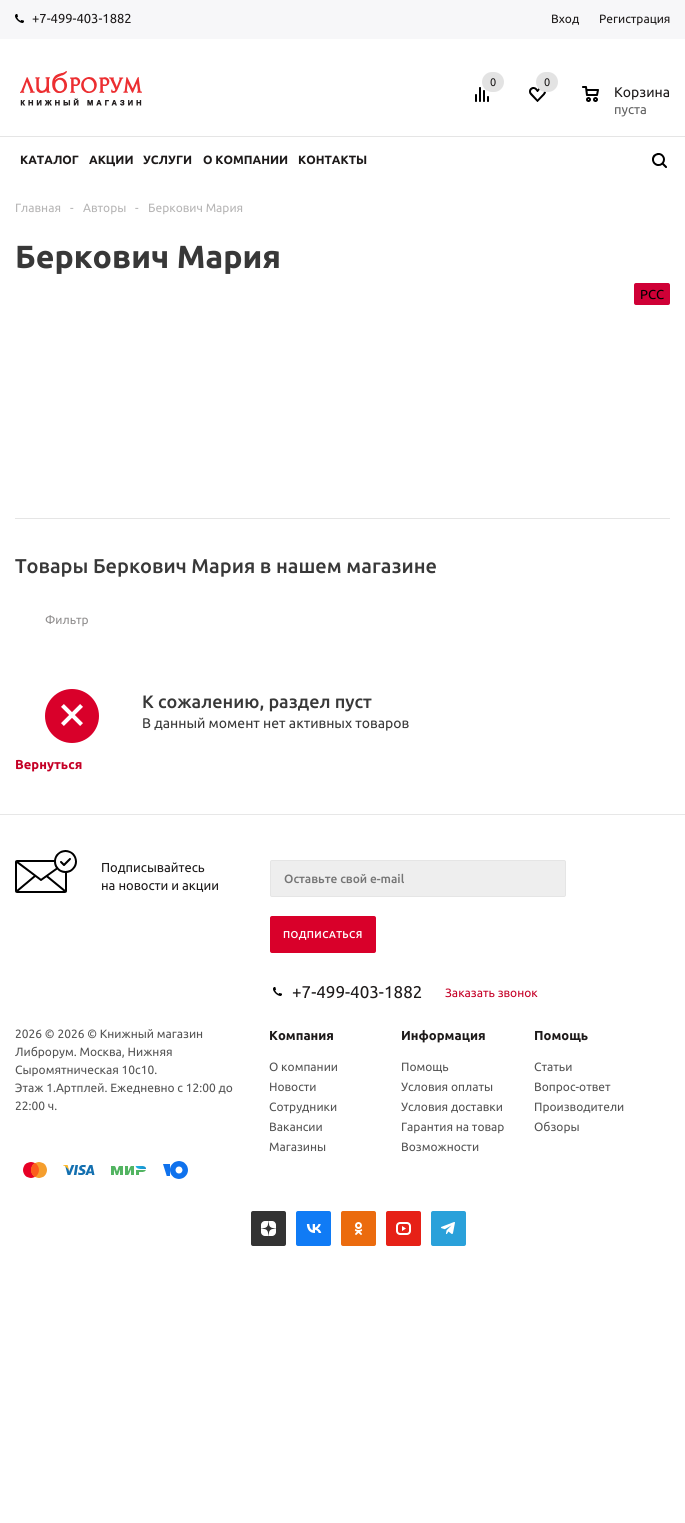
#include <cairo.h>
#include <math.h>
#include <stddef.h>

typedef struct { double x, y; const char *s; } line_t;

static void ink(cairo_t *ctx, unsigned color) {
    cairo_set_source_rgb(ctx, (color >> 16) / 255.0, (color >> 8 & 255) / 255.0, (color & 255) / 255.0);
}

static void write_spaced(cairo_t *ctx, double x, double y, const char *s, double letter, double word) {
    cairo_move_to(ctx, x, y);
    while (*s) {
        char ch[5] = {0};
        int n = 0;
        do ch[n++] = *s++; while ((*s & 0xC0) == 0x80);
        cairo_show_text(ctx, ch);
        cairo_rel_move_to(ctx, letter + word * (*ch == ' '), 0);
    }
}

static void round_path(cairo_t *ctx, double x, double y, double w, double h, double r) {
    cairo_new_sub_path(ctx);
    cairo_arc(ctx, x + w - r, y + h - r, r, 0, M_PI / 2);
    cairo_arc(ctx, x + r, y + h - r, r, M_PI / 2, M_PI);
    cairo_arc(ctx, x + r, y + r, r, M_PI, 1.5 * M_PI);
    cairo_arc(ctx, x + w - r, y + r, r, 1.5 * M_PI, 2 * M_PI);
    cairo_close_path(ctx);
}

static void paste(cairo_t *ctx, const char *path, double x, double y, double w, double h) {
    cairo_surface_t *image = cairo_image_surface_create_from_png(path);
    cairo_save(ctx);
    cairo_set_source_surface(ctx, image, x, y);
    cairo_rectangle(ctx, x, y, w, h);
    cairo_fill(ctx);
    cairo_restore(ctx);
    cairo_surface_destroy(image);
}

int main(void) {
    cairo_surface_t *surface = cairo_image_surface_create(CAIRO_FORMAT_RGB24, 685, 1523);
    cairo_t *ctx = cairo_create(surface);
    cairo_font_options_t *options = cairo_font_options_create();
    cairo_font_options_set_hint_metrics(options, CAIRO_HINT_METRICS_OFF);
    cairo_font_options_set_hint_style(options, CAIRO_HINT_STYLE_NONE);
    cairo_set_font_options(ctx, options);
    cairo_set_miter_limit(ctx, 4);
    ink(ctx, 0xFFFFFF);
    cairo_paint(ctx);
    ink(ctx, 0xF7F7F9);
    cairo_rectangle(ctx, 0, 0, 685, 39);
    cairo_fill(ctx);
    paste(ctx, "media/1.png", 15, 14, 9, 9);
    cairo_select_font_face(ctx, "Ubuntu", CAIRO_FONT_SLANT_NORMAL, CAIRO_FONT_WEIGHT_NORMAL);
    cairo_set_font_size(ctx, 13);
    ink(ctx, 0x1D1A1A);
    cairo_move_to(ctx, 32, 23);
    cairo_show_text(ctx, "+7-499-403-1882");
    cairo_set_font_size(ctx, 12);
    cairo_move_to(ctx, 551, 23);
    cairo_show_text(ctx, "Вход");
    cairo_move_to(ctx, 599, 23);
    cairo_show_text(ctx, "Регистрация");
    ink(ctx, 0xE5E5E5);
    cairo_rectangle(ctx, 0, 136, 685, 1);
    cairo_fill(ctx);
    paste(ctx, "media/2.png", 15, 70, 160, 40);
    paste(ctx, "media/3.png", 475, 87, 14, 15);
    ink(ctx, 0xE3E3E3);
    round_path(ctx, 482, 72, 22, 20, 10);
    cairo_fill(ctx);
    cairo_set_font_size(ctx, 11);
    ink(ctx, 0x1D1A1A);
    cairo_move_to(ctx, 490, 86);
    cairo_show_text(ctx, "0");
    paste(ctx, "media/4.png", 529, 87, 17, 15);
    ink(ctx, 0xE3E3E3);
    round_path(ctx, 536, 72, 22, 20, 10);
    cairo_fill(ctx);
    ink(ctx, 0x1D1A1A);
    cairo_move_to(ctx, 544, 86);
    cairo_show_text(ctx, "0");
    paste(ctx, "media/5.png", 582, 86, 17, 16);
    cairo_set_font_size(ctx, 14);
    cairo_move_to(ctx, 614, 97);
    cairo_show_text(ctx, "Корзина");
    cairo_set_font_size(ctx, 13);
    ink(ctx, 0x5F5F5F);
    cairo_move_to(ctx, 614, 114);
    cairo_show_text(ctx, "пуста");
    cairo_select_font_face(ctx, "Ubuntu", CAIRO_FONT_SLANT_NORMAL, CAIRO_FONT_WEIGHT_BOLD);
    cairo_set_font_size(ctx, 12);
    ink(ctx, 0x1D1A1A);
    {
        static const line_t items[] = {
            {20, 164, "КАТАЛОГ"},
            {89, 164, "АКЦИИ"},
            {143, 164, "УСЛУГИ"},
            {203, 164, "О КОМПАНИИ"},
            {298, 164, "КОНТАКТЫ"},
        };
        for (size_t i = 0; i < sizeof items / sizeof *items; i++) {
            cairo_move_to(ctx, items[i].x, items[i].y);
            cairo_show_text(ctx, items[i].s);
        }
    }
    paste(ctx, "media/6.png", 652, 153, 15, 15);
    cairo_select_font_face(ctx, "Ubuntu", CAIRO_FONT_SLANT_NORMAL, CAIRO_FONT_WEIGHT_NORMAL);
    ink(ctx, 0xB6B5B5);
    {
        static const line_t items[] = {
            {15, 212, "Главная"},
            {70, 212, "-"},
            {83, 212, "Авторы"},
            {135, 212, "-"},
            {148, 212, "Беркович Мария"},
        };
        for (size_t i = 0; i < sizeof items / sizeof *items; i++) {
            cairo_move_to(ctx, items[i].x, items[i].y);
            cairo_show_text(ctx, items[i].s);
        }
    }
    cairo_select_font_face(ctx, "Ubuntu", CAIRO_FONT_SLANT_NORMAL, CAIRO_FONT_WEIGHT_BOLD);
    cairo_set_font_size(ctx, 32);
    ink(ctx, 0x383838);
    cairo_move_to(ctx, 15, 268);
    cairo_show_text(ctx, "Беркович Мария");
    ink(ctx, 0xCF0036);
    round_path(ctx, 634, 283, 36, 22, 2);
    cairo_fill(ctx);
    cairo_select_font_face(ctx, "Ubuntu", CAIRO_FONT_SLANT_NORMAL, CAIRO_FONT_WEIGHT_NORMAL);
    cairo_set_font_size(ctx, 13);
    ink(ctx, 0x000000);
    cairo_move_to(ctx, 640, 299);
    cairo_show_text(ctx, "РСС");
    ink(ctx, 0xE5E5E5);
    cairo_rectangle(ctx, 15, 518, 655, 1);
    cairo_fill(ctx);
    cairo_select_font_face(ctx, "Ubuntu Medium", CAIRO_FONT_SLANT_NORMAL, CAIRO_FONT_WEIGHT_NORMAL);
    cairo_set_font_size(ctx, 20);
    ink(ctx, 0x383838);
    cairo_move_to(ctx, 15, 573);
    cairo_show_text(ctx, "Товары Беркович Мария в нашем магазине");
    cairo_select_font_face(ctx, "Ubuntu", CAIRO_FONT_SLANT_NORMAL, CAIRO_FONT_WEIGHT_NORMAL);
    cairo_set_font_size(ctx, 12);
    ink(ctx, 0x8E8C8C);
    cairo_move_to(ctx, 45, 624);
    cairo_show_text(ctx, "Фильтр");
    ink(ctx, 0xD9002A);
    cairo_new_path(ctx);
    cairo_arc(ctx, 72, 716, 27, 0, 2 * M_PI);
    cairo_fill(ctx);
    cairo_select_font_face(ctx, "Ubuntu Medium", CAIRO_FONT_SLANT_NORMAL, CAIRO_FONT_WEIGHT_NORMAL);
    cairo_set_font_size(ctx, 18);
    ink(ctx, 0x383838);
    cairo_move_to(ctx, 142, 708);
    cairo_show_text(ctx, "К сожалению, раздел пуст");
    cairo_select_font_face(ctx, "Ubuntu", CAIRO_FONT_SLANT_NORMAL, CAIRO_FONT_WEIGHT_NORMAL);
    cairo_set_font_size(ctx, 14);
    cairo_move_to(ctx, 142, 728);
    cairo_show_text(ctx, "В данный момент нет активных товаров");
    paste(ctx, "media/7.png", 61, 704, 22, 22);
    cairo_select_font_face(ctx, "Ubuntu", CAIRO_FONT_SLANT_NORMAL, CAIRO_FONT_WEIGHT_BOLD);
    cairo_set_font_size(ctx, 13);
    ink(ctx, 0xC50026);
    cairo_move_to(ctx, 15, 769);
    cairo_show_text(ctx, "Вернуться");
    ink(ctx, 0xE7E7E7);
    cairo_rectangle(ctx, 0, 814, 685, 1);
    cairo_fill(ctx);
    paste(ctx, "media/8.png", 15, 850, 62, 43);
    cairo_select_font_face(ctx, "Ubuntu", CAIRO_FONT_SLANT_NORMAL, CAIRO_FONT_WEIGHT_NORMAL);
    ink(ctx, 0x1D1A1A);
    cairo_move_to(ctx, 101, 872);
    cairo_show_text(ctx, "Подписывайтесь");
    cairo_move_to(ctx, 101, 890);
    cairo_show_text(ctx, "на новости и акции");
    ink(ctx, 0xEEEEEE);
    round_path(ctx, 270.5, 860.5, 295, 36, 1.5);
    cairo_fill_preserve(ctx);
    ink(ctx, 0xE5E5E5);
    cairo_set_line_width(ctx, 1);
    cairo_stroke(ctx);
    cairo_select_font_face(ctx, "Ubuntu Medium", CAIRO_FONT_SLANT_NORMAL, CAIRO_FONT_WEIGHT_NORMAL);
    cairo_set_font_size(ctx, 12);
    ink(ctx, 0x757575);
    cairo_move_to(ctx, 284, 883);
    cairo_show_text(ctx, "Оставьте свой e-mail");
    ink(ctx, 0xD9002A);
    round_path(ctx, 270, 916, 106, 37, 2);
    cairo_fill(ctx);
    cairo_set_font_size(ctx, 10);
    ink(ctx, 0xFFFFFF);
    write_spaced(ctx, 283, 938, "ПОДПИСАТЬСЯ", 0.4, 0);
    paste(ctx, "media/9.png", 273, 987, 9, 9);
    cairo_select_font_face(ctx, "Ubuntu", CAIRO_FONT_SLANT_NORMAL, CAIRO_FONT_WEIGHT_NORMAL);
    cairo_set_font_size(ctx, 17);
    ink(ctx, 0x1D1A1A);
    cairo_move_to(ctx, 292, 998);
    cairo_show_text(ctx, "+7-499-403-1882");
    cairo_set_font_size(ctx, 12);
    ink(ctx, 0xC50026);
    cairo_move_to(ctx, 445, 997);
    cairo_show_text(ctx, "Заказать звонок");
    ink(ctx, 0x545454);
    {
        static const line_t items[] = {
            {15, 1038, "2026 © 2026 © Книжный магазин"},
            {15, 1056, "Либрорум. Москва, Нижняя"},
            {15, 1074, "Сыромятническая 10с10."},
            {15, 1092, "Этаж 1.Артплей. Ежедневно с 12:00 до"},
            {15, 1110, "22:00 ч."},
        };
        for (size_t i = 0; i < sizeof items / sizeof *items; i++) {
            cairo_move_to(ctx, items[i].x, items[i].y);
            cairo_show_text(ctx, items[i].s);
        }
    }
    paste(ctx, "media/10.png", 23, 1162, 24, 16);
    paste(ctx, "media/11.png", 63, 1165, 32, 10);
    paste(ctx, "media/12.png", 111, 1166, 35, 9);
    paste(ctx, "media/13.png", 163, 1161, 25, 18);
    cairo_select_font_face(ctx, "Ubuntu", CAIRO_FONT_SLANT_NORMAL, CAIRO_FONT_WEIGHT_BOLD);
    cairo_set_font_size(ctx, 13);
    ink(ctx, 0x1D1A1A);
    {
        static const line_t items[] = {
            {269, 1040, "Компания"},
            {401, 1040, "Информация"},
            {534, 1040, "Помощь"},
        };
        for (size_t i = 0; i < sizeof items / sizeof *items; i++) {
            cairo_move_to(ctx, items[i].x, items[i].y);
            cairo_show_text(ctx, items[i].s);
        }
    }
    cairo_select_font_face(ctx, "Ubuntu", CAIRO_FONT_SLANT_NORMAL, CAIRO_FONT_WEIGHT_NORMAL);
    cairo_set_font_size(ctx, 12);
    ink(ctx, 0x545454);
    {
        static const line_t items[] = {
            {269, 1071, "О компании"},
            {269, 1091, "Новости"},
            {269, 1111, "Сотрудники"},
            {269, 1131, "Вакансии"},
            {269, 1151, "Магазины"},
            {401, 1071, "Помощь"},
            {401, 1091, "Условия оплаты"},
            {401, 1111, "Условия доставки"},
            {401, 1131, "Гарантия на товар"},
            {401, 1151, "Возможности"},
            {534, 1071, "Статьи"},
            {534, 1091, "Вопрос-ответ"},
            {534, 1111, "Производители"},
            {534, 1131, "Обзоры"},
        };
        for (size_t i = 0; i < sizeof items / sizeof *items; i++) {
            cairo_move_to(ctx, items[i].x, items[i].y);
            cairo_show_text(ctx, items[i].s);
        }
    }
    paste(ctx, "media/14.png", 251, 1211, 35, 35);
    paste(ctx, "media/15.png", 296, 1211, 35, 35);
    paste(ctx, "media/16.png", 341, 1211, 35, 35);
    paste(ctx, "media/17.png", 386, 1211, 35, 35);
    paste(ctx, "media/18.png", 431, 1211, 35, 35);
    cairo_surface_write_to_png(surface, "image.png");
    cairo_font_options_destroy(options);
    cairo_destroy(ctx);
    cairo_surface_destroy(surface);
    return 0;
}
